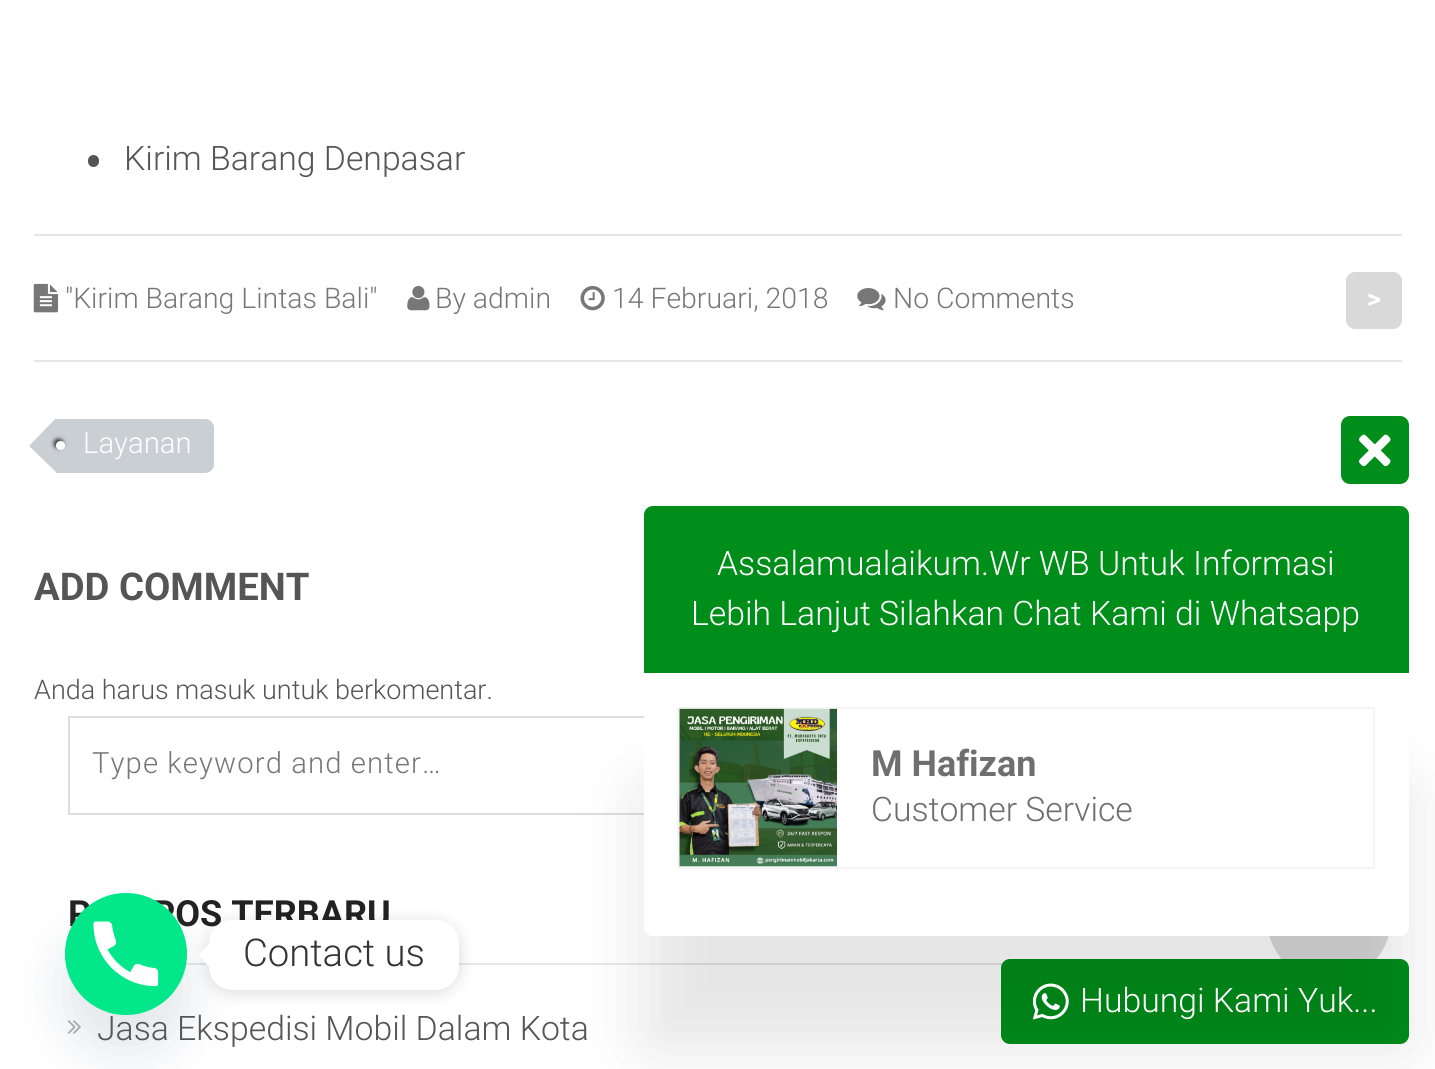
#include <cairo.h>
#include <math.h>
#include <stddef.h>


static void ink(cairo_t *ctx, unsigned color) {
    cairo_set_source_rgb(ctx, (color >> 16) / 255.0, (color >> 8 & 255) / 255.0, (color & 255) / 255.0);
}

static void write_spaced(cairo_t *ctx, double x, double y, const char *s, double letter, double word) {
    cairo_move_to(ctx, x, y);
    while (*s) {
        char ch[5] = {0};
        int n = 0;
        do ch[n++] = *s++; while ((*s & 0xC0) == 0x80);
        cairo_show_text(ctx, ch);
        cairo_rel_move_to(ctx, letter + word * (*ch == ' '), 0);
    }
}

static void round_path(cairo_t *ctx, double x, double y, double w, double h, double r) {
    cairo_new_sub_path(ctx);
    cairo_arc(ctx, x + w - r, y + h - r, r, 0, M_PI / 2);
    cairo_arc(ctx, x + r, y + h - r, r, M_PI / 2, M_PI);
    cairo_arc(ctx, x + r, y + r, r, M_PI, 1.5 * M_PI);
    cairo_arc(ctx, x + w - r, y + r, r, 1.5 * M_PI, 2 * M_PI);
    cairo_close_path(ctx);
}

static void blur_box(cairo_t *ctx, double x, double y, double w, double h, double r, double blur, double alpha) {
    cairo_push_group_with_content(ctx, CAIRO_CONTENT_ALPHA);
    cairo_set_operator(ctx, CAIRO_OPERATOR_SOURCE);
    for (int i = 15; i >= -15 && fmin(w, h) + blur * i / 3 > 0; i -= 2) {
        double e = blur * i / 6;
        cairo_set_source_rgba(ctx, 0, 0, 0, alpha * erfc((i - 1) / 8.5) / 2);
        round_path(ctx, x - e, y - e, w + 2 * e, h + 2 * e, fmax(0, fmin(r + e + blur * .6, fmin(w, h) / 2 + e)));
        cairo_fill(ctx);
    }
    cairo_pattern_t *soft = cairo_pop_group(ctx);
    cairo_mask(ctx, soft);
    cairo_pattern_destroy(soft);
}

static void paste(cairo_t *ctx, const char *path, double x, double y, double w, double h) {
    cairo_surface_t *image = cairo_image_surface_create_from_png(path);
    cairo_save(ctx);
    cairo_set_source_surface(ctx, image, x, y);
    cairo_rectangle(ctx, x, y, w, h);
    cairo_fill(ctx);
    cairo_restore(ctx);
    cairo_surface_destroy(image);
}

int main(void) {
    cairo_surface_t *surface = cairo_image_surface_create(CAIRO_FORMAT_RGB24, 1435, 1069);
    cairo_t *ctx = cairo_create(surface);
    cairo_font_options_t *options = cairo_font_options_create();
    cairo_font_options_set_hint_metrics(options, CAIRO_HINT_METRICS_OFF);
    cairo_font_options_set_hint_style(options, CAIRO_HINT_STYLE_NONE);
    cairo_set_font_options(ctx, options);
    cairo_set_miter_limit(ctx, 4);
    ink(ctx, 0xFFFFFF);
    cairo_paint(ctx);
    ink(ctx, 0x555555);
    round_path(ctx, 88, 155, 11, 12, 5.5);
    cairo_fill(ctx);
    cairo_select_font_face(ctx, "Roboto Light", CAIRO_FONT_SLANT_NORMAL, CAIRO_FONT_WEIGHT_NORMAL);
    cairo_set_font_size(ctx, 33.75);
    cairo_move_to(ctx, 124, 170);
    cairo_show_text(ctx, "Kirim Barang Denpasar");
    ink(ctx, 0xE6E6E6);
    cairo_rectangle(ctx, 34, 234, 1368, 2);
    cairo_fill(ctx);
    cairo_rectangle(ctx, 34, 360, 1368, 2);
    cairo_fill(ctx);
    paste(ctx, "media/1.png", 33, 283, 26, 30);
    cairo_set_font_size(ctx, 28.4);
    ink(ctx, 0x777777);
    cairo_move_to(ctx, 65, 308);
    cairo_show_text(ctx, "\"Kirim Barang Lintas Bali\"");
    paste(ctx, "media/2.png", 407, 286, 23, 25);
    cairo_move_to(ctx, 435, 308);
    cairo_show_text(ctx, "By admin");
    paste(ctx, "media/3.png", 580, 286, 25, 25);
    cairo_move_to(ctx, 612, 308);
    cairo_show_text(ctx, "14 Februari, 2018");
    paste(ctx, "media/4.png", 857, 288, 29, 23);
    cairo_move_to(ctx, 893, 308);
    cairo_show_text(ctx, "No Comments");
    ink(ctx, 0xD9D9D9);
    round_path(ctx, 1346, 272, 56, 57, 9);
    cairo_fill(ctx);
    cairo_select_font_face(ctx, "Roboto", CAIRO_FONT_SLANT_NORMAL, CAIRO_FONT_WEIGHT_BOLD);
    cairo_set_font_size(ctx, 27);
    ink(ctx, 0xFFFFFF);
    cairo_move_to(ctx, 1367, 308);
    cairo_show_text(ctx, ">");
    ink(ctx, 0xCACFD4);
    cairo_new_path(ctx);
    cairo_move_to(ctx, 56, 419);
    cairo_line_to(ctx, 205, 419);
    cairo_curve_to(ctx, 210, 419, 214, 423, 214, 428);
    cairo_line_to(ctx, 214, 464);
    cairo_curve_to(ctx, 214, 469, 210, 473, 205, 473);
    cairo_line_to(ctx, 56, 473);
    cairo_close_path(ctx);
    cairo_fill(ctx);
    cairo_new_path(ctx);
    cairo_move_to(ctx, 56, 418);
    cairo_line_to(ctx, 56, 472);
    cairo_line_to(ctx, 29, 446);
    cairo_close_path(ctx);
    cairo_fill(ctx);
    ink(ctx, 0x333333);
    blur_box(ctx, 54, 439, 9, 9, 4.5, 2, 1);
    ink(ctx, 0xFFFFFF);
    cairo_arc(ctx, 60.5, 445.5, 4.5, 0, 2 * M_PI);
    cairo_fill(ctx);
    cairo_select_font_face(ctx, "Roboto Light", CAIRO_FONT_SLANT_NORMAL, CAIRO_FONT_WEIGHT_NORMAL);
    cairo_set_font_size(ctx, 29.25);
    cairo_move_to(ctx, 83, 453);
    cairo_show_text(ctx, "Layanan");
    cairo_select_font_face(ctx, "Roboto", CAIRO_FONT_SLANT_NORMAL, CAIRO_FONT_WEIGHT_BOLD);
    cairo_set_font_size(ctx, 38.25);
    ink(ctx, 0x555555);
    cairo_move_to(ctx, 34, 600);
    cairo_show_text(ctx, "ADD COMMENT");
    cairo_select_font_face(ctx, "Roboto Light", CAIRO_FONT_SLANT_NORMAL, CAIRO_FONT_WEIGHT_NORMAL);
    cairo_set_font_size(ctx, 27);
    cairo_move_to(ctx, 34, 699);
    cairo_show_text(ctx, "Anda harus masuk untuk berkomentar.");
    cairo_rectangle(ctx, 69, 717, 1298, 97);
    ink(ctx, 0xDDDDDD);
    cairo_stroke(ctx);
    cairo_set_font_size(ctx, 29.25);
    ink(ctx, 0x777777);
    write_spaced(ctx, 92, 773, "Type keyword and enter…", 1.1, 0);
    ink(ctx, 0xE6E6E6);
    cairo_rectangle(ctx, 186, 963, 817, 2);
    cairo_fill(ctx);
    cairo_select_font_face(ctx, "Roboto", CAIRO_FONT_SLANT_NORMAL, CAIRO_FONT_WEIGHT_BOLD);
    cairo_set_font_size(ctx, 36);
    ink(ctx, 0x222222);
    cairo_move_to(ctx, 68, 926);
    cairo_show_text(ctx, "P");
    cairo_move_to(ctx, 152, 926);
    cairo_show_text(ctx, "POS TERBARU");
    paste(ctx, "media/5.png", 67, 1020, 14, 14);
    cairo_select_font_face(ctx, "Roboto Light", CAIRO_FONT_SLANT_NORMAL, CAIRO_FONT_WEIGHT_NORMAL);
    cairo_set_font_size(ctx, 33.75);
    ink(ctx, 0x555555);
    cairo_move_to(ctx, 97, 1040);
    cairo_show_text(ctx, "Jasa Ekspedisi Mobil Dalam Kota");
    ink(ctx, 0x008E1A);
    cairo_new_path(ctx);
    cairo_move_to(ctx, 653, 506);
    cairo_line_to(ctx, 1400, 506);
    cairo_curve_to(ctx, 1405, 506, 1409, 510, 1409, 515);
    cairo_line_to(ctx, 1409, 673);
    cairo_line_to(ctx, 644, 673);
    cairo_line_to(ctx, 644, 515);
    cairo_curve_to(ctx, 644, 510, 648, 506, 653, 506);
    cairo_close_path(ctx);
    cairo_fill(ctx);
    round_path(ctx, 1341, 416, 68, 68, 9);
    cairo_fill(ctx);
    paste(ctx, "media/6.png", 1359, 434, 32, 33);
    ink(ctx, 0xFFFFFF);
    cairo_move_to(ctx, 717, 575);
    cairo_show_text(ctx, "Assalamualaikum.Wr WB Untuk Informasi");
    cairo_move_to(ctx, 691, 625);
    cairo_show_text(ctx, "Lebih Lanjut Silahkan Chat Kami di Whatsapp");
    cairo_set_source_rgba(ctx, 0, 0, 0, 0.15);
    cairo_new_path(ctx);
    cairo_arc(ctx, 1329, 919, 62, 0, 2 * M_PI);
    cairo_fill(ctx);
    ink(ctx, 0x008E1A);
    round_path(ctx, 1001, 959, 408, 85, 9);
    cairo_fill(ctx);
    ink(ctx, 0x000000);
    blur_box(ctx, 644, 785, 765, 264, 9, 34, 0.1);
    ink(ctx, 0xFFFFFF);
    cairo_new_path(ctx);
    cairo_move_to(ctx, 644, 673);
    cairo_line_to(ctx, 1409, 673);
    cairo_line_to(ctx, 1409, 927);
    cairo_curve_to(ctx, 1409, 932, 1405, 936, 1400, 936);
    cairo_line_to(ctx, 653, 936);
    cairo_curve_to(ctx, 648, 936, 644, 932, 644, 927);
    cairo_close_path(ctx);
    cairo_fill(ctx);
    cairo_rectangle(ctx, 678, 708, 696, 160);
    ink(ctx, 0xF5F5F5);
    cairo_stroke(ctx);
    paste(ctx, "media/7.png", 679, 708, 158, 159);
    cairo_select_font_face(ctx, "Roboto", CAIRO_FONT_SLANT_NORMAL, CAIRO_FONT_WEIGHT_BOLD);
    cairo_set_font_size(ctx, 36);
    ink(ctx, 0x706F6F);
    cairo_move_to(ctx, 871, 776);
    cairo_show_text(ctx, "M Hafizan");
    cairo_select_font_face(ctx, "Roboto Light", CAIRO_FONT_SLANT_NORMAL, CAIRO_FONT_WEIGHT_NORMAL);
    cairo_set_font_size(ctx, 33.75);
    cairo_move_to(ctx, 871, 821);
    cairo_show_text(ctx, "Customer Service");
    paste(ctx, "media/8.png", 1033, 983, 36, 37);
    ink(ctx, 0xFFFFFF);
    cairo_move_to(ctx, 1080, 1012);
    cairo_show_text(ctx, "Hubungi Kami Yuk...");
    ink(ctx, 0x49687E);
    blur_box(ctx, 65, 929, 122, 122, 61, 27, 0.16);
    ink(ctx, 0x03E78B);
    cairo_arc(ctx, 126, 954, 61, 0, 2 * M_PI);
    cairo_fill(ctx);
    paste(ctx, "media/9.png", 65, 893, 122, 122);
    ink(ctx, 0x000000);
    blur_box(ctx, 209, 923, 250, 69, 23, 8.5, 0.15);
    ink(ctx, 0xFFFFFF);
    round_path(ctx, 209, 920, 250, 70, 23);
    cairo_fill(ctx);
    cairo_new_path(ctx);
    cairo_move_to(ctx, 209, 944);
    cairo_line_to(ctx, 209, 966.5);
    cairo_line_to(ctx, 198, 955);
    cairo_close_path(ctx);
    cairo_fill(ctx);
    cairo_set_font_size(ctx, 38.25);
    ink(ctx, 0x333333);
    cairo_move_to(ctx, 243, 966);
    cairo_show_text(ctx, "Contact us");
    cairo_surface_write_to_png(surface, "image.png");
    cairo_font_options_destroy(options);
    cairo_destroy(ctx);
    cairo_surface_destroy(surface);
    return 0;
}
